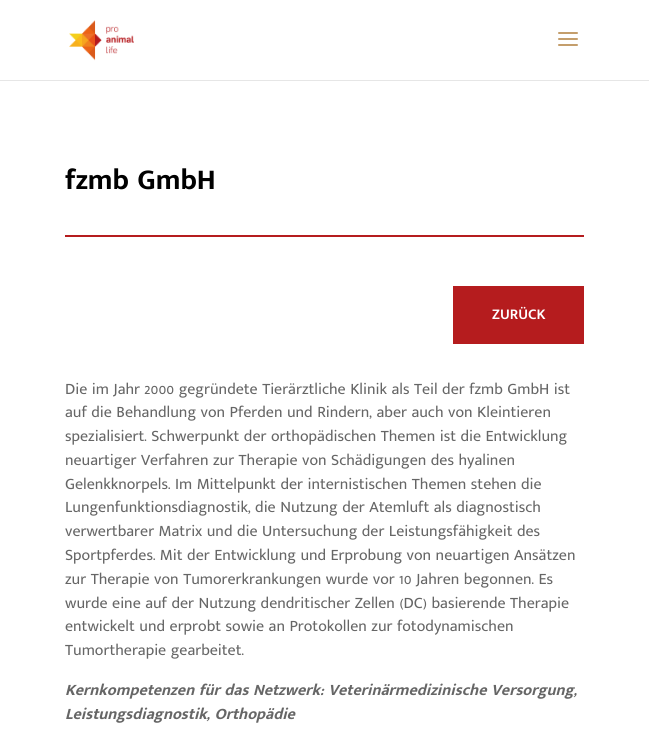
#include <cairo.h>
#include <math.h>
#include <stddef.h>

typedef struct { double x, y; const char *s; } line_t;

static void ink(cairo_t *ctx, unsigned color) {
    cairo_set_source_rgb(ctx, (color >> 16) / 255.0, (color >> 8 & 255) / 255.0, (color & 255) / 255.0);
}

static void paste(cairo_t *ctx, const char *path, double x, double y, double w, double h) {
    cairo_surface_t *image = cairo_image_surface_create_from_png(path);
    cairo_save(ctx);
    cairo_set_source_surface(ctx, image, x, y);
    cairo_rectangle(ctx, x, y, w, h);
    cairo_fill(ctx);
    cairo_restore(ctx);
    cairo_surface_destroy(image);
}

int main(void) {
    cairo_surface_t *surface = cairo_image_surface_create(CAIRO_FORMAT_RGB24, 649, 729);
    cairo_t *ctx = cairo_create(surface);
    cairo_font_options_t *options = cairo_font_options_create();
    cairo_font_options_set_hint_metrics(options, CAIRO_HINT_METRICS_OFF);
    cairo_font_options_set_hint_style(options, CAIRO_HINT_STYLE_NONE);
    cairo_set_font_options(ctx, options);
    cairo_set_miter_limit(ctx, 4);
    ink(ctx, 0xFFFFFF);
    cairo_paint(ctx);
    ink(ctx, 0xE6E6E6);
    cairo_rectangle(ctx, 0, 80, 649, 1);
    cairo_fill(ctx);
    paste(ctx, "media/1.png", 69, 20, 65, 41);
    paste(ctx, "media/2.png", 558, 32, 20, 14);
    cairo_select_font_face(ctx, "Mukta Malar", CAIRO_FONT_SLANT_NORMAL, CAIRO_FONT_WEIGHT_BOLD);
    cairo_set_font_size(ctx, 29);
    ink(ctx, 0x000000);
    cairo_move_to(ctx, 65, 189);
    cairo_show_text(ctx, "fzmb GmbH");
    ink(ctx, 0xB51C1E);
    cairo_rectangle(ctx, 65, 235, 519, 2);
    cairo_fill(ctx);
    cairo_rectangle(ctx, 453, 286, 131, 58);
    cairo_fill(ctx);
    cairo_select_font_face(ctx, "Mukta Malar SemiBold", CAIRO_FONT_SLANT_NORMAL, CAIRO_FONT_WEIGHT_NORMAL);
    cairo_set_font_size(ctx, 15);
    ink(ctx, 0xFFFFFF);
    cairo_move_to(ctx, 492, 319);
    cairo_show_text(ctx, "ZURÜCK");
    cairo_select_font_face(ctx, "Mukta Malar", CAIRO_FONT_SLANT_NORMAL, CAIRO_FONT_WEIGHT_NORMAL);
    cairo_set_font_size(ctx, 16);
    ink(ctx, 0x666666);
    {
        static const line_t items[] = {
            {65, 394, "Die im Jahr 2000 gegründete Tierärztliche Klinik als Teil der fzmb GmbH ist"},
            {65, 417, "auf die Behandlung von Pferden und Rindern, aber auch von Kleintieren"},
            {65, 441, "spezialisiert. Schwerpunkt der orthopädischen Themen ist die Entwicklung"},
            {65, 465, "neuartiger Verfahren zur Therapie von Schädigungen des hyalinen"},
            {65, 489, "Gelenkknorpels. Im Mittelpunkt der internistischen Themen stehen die"},
            {65, 512, "Lungenfunktionsdiagnostik, die Nutzung der Atemluft als diagnostisch"},
            {65, 536, "verwertbarer Matrix und die Untersuchung der Leistungsfähigkeit des"},
            {65, 560, "Sportpferdes. Mit der Entwicklung und Erprobung von neuartigen Ansätzen"},
            {65, 584, "zur Therapie von Tumorerkrankungen wurde vor 10 Jahren begonnen. Es"},
            {65, 608, "wurde eine auf der Nutzung dendritischer Zellen (DC) basierende Therapie"},
            {65, 631, "entwickelt und erprobt sowie an Protokollen zur fotodynamischen"},
            {65, 655, "Tumortherapie gearbeitet."},
        };
        for (size_t i = 0; i < sizeof items / sizeof *items; i++) {
            cairo_move_to(ctx, items[i].x, items[i].y);
            cairo_show_text(ctx, items[i].s);
        }
    }
    cairo_select_font_face(ctx, "Mukta Malar", CAIRO_FONT_SLANT_ITALIC, CAIRO_FONT_WEIGHT_BOLD);
    cairo_move_to(ctx, 65, 695);
    cairo_show_text(ctx, "Kernkompetenzen für das Netzwerk: Veterinärmedizinische Versorgung,");
    cairo_move_to(ctx, 65, 719);
    cairo_show_text(ctx, "Leistungsdiagnostik, Orthopädie");
    cairo_surface_write_to_png(surface, "image.png");
    cairo_font_options_destroy(options);
    cairo_destroy(ctx);
    cairo_surface_destroy(surface);
    return 0;
}
